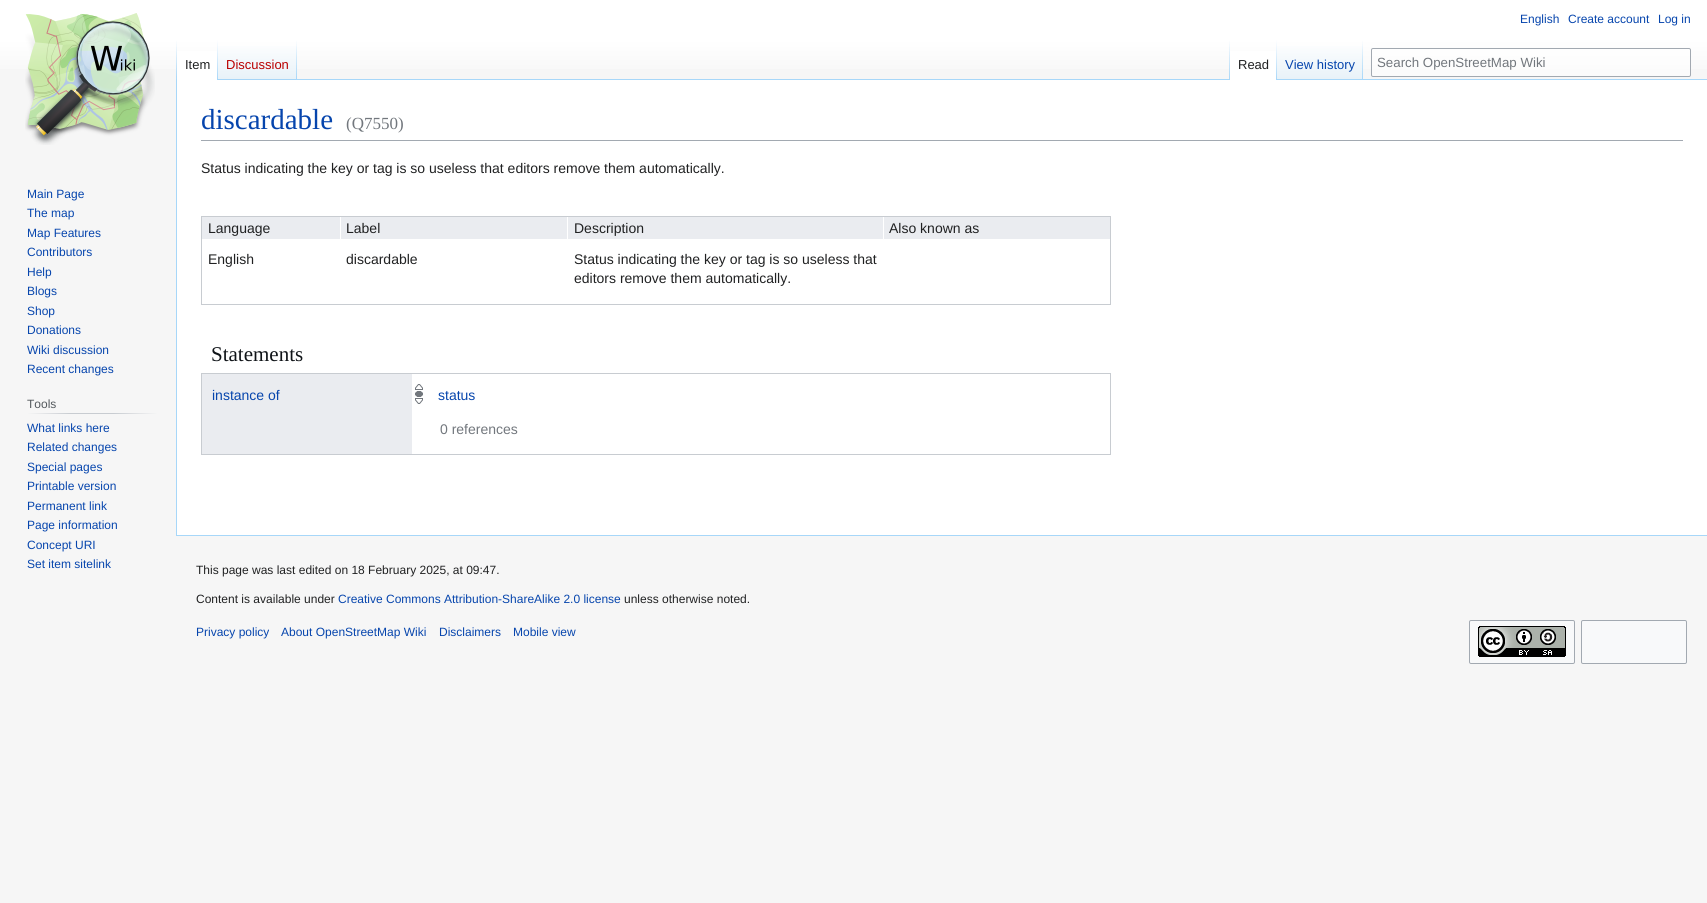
#include <cairo.h>
#include <math.h>
#include <stddef.h>

typedef struct { double x, y; const char *s; } line_t;
typedef struct { double x, y, w, h; unsigned color; } box_t;

static void ink(cairo_t *ctx, unsigned color) {
    cairo_set_source_rgb(ctx, (color >> 16) / 255.0, (color >> 8 & 255) / 255.0, (color & 255) / 255.0);
}

static void round_path(cairo_t *ctx, double x, double y, double w, double h, double r) {
    cairo_new_sub_path(ctx);
    cairo_arc(ctx, x + w - r, y + h - r, r, 0, M_PI / 2);
    cairo_arc(ctx, x + r, y + h - r, r, M_PI / 2, M_PI);
    cairo_arc(ctx, x + r, y + r, r, M_PI, 1.5 * M_PI);
    cairo_arc(ctx, x + w - r, y + r, r, 1.5 * M_PI, 2 * M_PI);
    cairo_close_path(ctx);
}

static void paste(cairo_t *ctx, const char *path, double x, double y, double w, double h) {
    cairo_surface_t *image = cairo_image_surface_create_from_png(path);
    cairo_save(ctx);
    cairo_set_source_surface(ctx, image, x, y);
    cairo_rectangle(ctx, x, y, w, h);
    cairo_fill(ctx);
    cairo_restore(ctx);
    cairo_surface_destroy(image);
}

int main(void) {
    cairo_surface_t *surface = cairo_image_surface_create(CAIRO_FORMAT_RGB24, 1707, 903);
    cairo_t *ctx = cairo_create(surface);
    cairo_font_options_t *options = cairo_font_options_create();
    cairo_font_options_set_hint_metrics(options, CAIRO_HINT_METRICS_OFF);
    cairo_font_options_set_hint_style(options, CAIRO_HINT_STYLE_NONE);
    cairo_set_font_options(ctx, options);
    cairo_set_miter_limit(ctx, 4);
    cairo_pattern_t *gradient;
    ink(ctx, 0xF6F6F6);
    cairo_paint(ctx);
    gradient = cairo_pattern_create_linear(854, 0, 854, 80);
    cairo_pattern_add_color_stop_rgba(gradient, 0.5, 1, 1, 1, 1);
    cairo_pattern_add_color_stop_rgba(gradient, 1, 0.965, 0.965, 0.965, 1);
    cairo_set_source(ctx, gradient);
    cairo_pattern_destroy(gradient);
    cairo_rectangle(ctx, 0, 0, 1707, 69);
    cairo_fill(ctx);
    cairo_select_font_face(ctx, "Liberation Sans", CAIRO_FONT_SLANT_NORMAL, CAIRO_FONT_WEIGHT_NORMAL);
    cairo_set_font_size(ctx, 12);
    ink(ctx, 0x0645AD);
    {
        static const line_t items[] = {
            {1520, 23, "English"},
            {1568, 23, "Create account"},
            {1658, 23, "Log in"},
        };
        for (size_t i = 0; i < sizeof items / sizeof *items; i++) {
            cairo_move_to(ctx, items[i].x, items[i].y);
            cairo_show_text(ctx, items[i].s);
        }
    }
    ink(ctx, 0xA7D7F9);
    cairo_rectangle(ctx, 176, 535, 1531, 1);
    cairo_fill(ctx);
    cairo_rectangle(ctx, 176, 79, 1, 457);
    cairo_fill(ctx);
    gradient = cairo_pattern_create_linear(177, 40, 177, 80);
    cairo_pattern_add_color_stop_rgba(gradient, 0, 0.655, 0.843, 0.976, 0);
    cairo_pattern_add_color_stop_rgba(gradient, 1, 0.655, 0.843, 0.976, 1);
    cairo_set_source(ctx, gradient);
    cairo_pattern_destroy(gradient);
    cairo_rectangle(ctx, 176, 40, 1, 40);
    cairo_fill(ctx);
    ink(ctx, 0xFFFFFF);
    cairo_rectangle(ctx, 177, 51, 40, 29);
    cairo_fill(ctx);
    gradient = cairo_pattern_create_linear(218, 40, 218, 80);
    cairo_pattern_add_color_stop_rgba(gradient, 0, 1, 1, 1, 1);
    cairo_pattern_add_color_stop_rgba(gradient, 1, 0.655, 0.843, 0.976, 1);
    cairo_set_source(ctx, gradient);
    cairo_pattern_destroy(gradient);
    cairo_rectangle(ctx, 217, 40, 1, 40);
    cairo_fill(ctx);
    cairo_set_font_size(ctx, 13);
    ink(ctx, 0x202122);
    cairo_move_to(ctx, 185, 69);
    cairo_show_text(ctx, "Item");
    gradient = cairo_pattern_create_linear(258, 80, 258, 40);
    cairo_pattern_add_color_stop_rgba(gradient, 0, 0.467, 0.757, 0.965, 1);
    cairo_pattern_add_color_stop_rgba(gradient, 0.03, 0.91, 0.949, 0.973, 1);
    cairo_pattern_add_color_stop_rgba(gradient, 1, 1, 1, 1, 1);
    cairo_set_source(ctx, gradient);
    cairo_pattern_destroy(gradient);
    cairo_rectangle(ctx, 218, 46, 79, 34);
    cairo_fill(ctx);
    gradient = cairo_pattern_create_linear(297, 40, 297, 80);
    cairo_pattern_add_color_stop_rgba(gradient, 0, 0.655, 0.843, 0.976, 0);
    cairo_pattern_add_color_stop_rgba(gradient, 1, 0.655, 0.843, 0.976, 1);
    cairo_set_source(ctx, gradient);
    cairo_pattern_destroy(gradient);
    cairo_rectangle(ctx, 296, 40, 1, 40);
    cairo_fill(ctx);
    ink(ctx, 0xBA0000);
    cairo_move_to(ctx, 226, 69);
    cairo_show_text(ctx, "Discussion");
    ink(ctx, 0xA7D7F9);
    cairo_rectangle(ctx, 297, 79, 1410, 1);
    cairo_fill(ctx);
    gradient = cairo_pattern_create_linear(1230, 40, 1230, 80);
    cairo_pattern_add_color_stop_rgba(gradient, 0, 0.655, 0.843, 0.976, 0);
    cairo_pattern_add_color_stop_rgba(gradient, 1, 0.655, 0.843, 0.976, 1);
    cairo_set_source(ctx, gradient);
    cairo_pattern_destroy(gradient);
    cairo_rectangle(ctx, 1229, 40, 1, 40);
    cairo_fill(ctx);
    ink(ctx, 0xFFFFFF);
    cairo_rectangle(ctx, 1230, 51, 46, 29);
    cairo_fill(ctx);
    gradient = cairo_pattern_create_linear(1277, 40, 1277, 80);
    cairo_pattern_add_color_stop_rgba(gradient, 0, 1, 1, 1, 1);
    cairo_pattern_add_color_stop_rgba(gradient, 1, 0.655, 0.843, 0.976, 1);
    cairo_set_source(ctx, gradient);
    cairo_pattern_destroy(gradient);
    cairo_rectangle(ctx, 1276, 40, 1, 40);
    cairo_fill(ctx);
    ink(ctx, 0x202122);
    cairo_move_to(ctx, 1238, 69);
    cairo_show_text(ctx, "Read");
    gradient = cairo_pattern_create_linear(1320, 80, 1320, 40);
    cairo_pattern_add_color_stop_rgba(gradient, 0, 0.467, 0.757, 0.965, 1);
    cairo_pattern_add_color_stop_rgba(gradient, 0.03, 0.91, 0.949, 0.973, 1);
    cairo_pattern_add_color_stop_rgba(gradient, 1, 1, 1, 1, 1);
    cairo_set_source(ctx, gradient);
    cairo_pattern_destroy(gradient);
    cairo_rectangle(ctx, 1277, 46, 86, 33);
    cairo_fill(ctx);
    gradient = cairo_pattern_create_linear(1363, 40, 1363, 80);
    cairo_pattern_add_color_stop_rgba(gradient, 0, 0.655, 0.843, 0.976, 0);
    cairo_pattern_add_color_stop_rgba(gradient, 1, 0.655, 0.843, 0.976, 1);
    cairo_set_source(ctx, gradient);
    cairo_pattern_destroy(gradient);
    cairo_rectangle(ctx, 1362, 40, 1, 40);
    cairo_fill(ctx);
    ink(ctx, 0x0645AD);
    cairo_move_to(ctx, 1285, 69);
    cairo_show_text(ctx, "View history");
    cairo_set_source_rgba(ctx, 1, 1, 1, 0.5);
    round_path(ctx, 1371.5, 48.5, 319, 28, 1.5);
    cairo_fill_preserve(ctx);
    ink(ctx, 0xA2A9B1);
    cairo_set_line_width(ctx, 1);
    cairo_stroke(ctx);
    cairo_set_font_size(ctx, 13.3);
    ink(ctx, 0x72777D);
    cairo_move_to(ctx, 1377, 67);
    cairo_show_text(ctx, "Search OpenStreetMap Wiki");
    paste(ctx, "media/1.png", 25, 13, 130, 132);
    cairo_set_font_size(ctx, 12);
    ink(ctx, 0x0645AD);
    {
        static const line_t items[] = {
            {27, 198, "Main Page"},
            {27, 217, "The map"},
            {27, 237, "Map Features"},
            {27, 256, "Contributors"},
            {27, 276, "Help"},
            {27, 295, "Blogs"},
            {27, 315, "Shop"},
            {27, 334, "Donations"},
            {27, 354, "Wiki discussion"},
            {27, 373, "Recent changes"},
        };
        for (size_t i = 0; i < sizeof items / sizeof *items; i++) {
            cairo_move_to(ctx, items[i].x, items[i].y);
            cairo_show_text(ctx, items[i].s);
        }
    }
    gradient = cairo_pattern_create_linear(27, 414, 158, 414);
    cairo_pattern_add_color_stop_rgba(gradient, 0, 0.965, 0.965, 0.965, 1);
    cairo_pattern_add_color_stop_rgba(gradient, 0.33, 0.784, 0.8, 0.82, 1);
    cairo_pattern_add_color_stop_rgba(gradient, 0.66, 0.784, 0.8, 0.82, 1);
    cairo_pattern_add_color_stop_rgba(gradient, 1, 0.965, 0.965, 0.965, 1);
    cairo_set_source(ctx, gradient);
    cairo_pattern_destroy(gradient);
    cairo_rectangle(ctx, 27, 413, 131, 1);
    cairo_fill(ctx);
    ink(ctx, 0x54595D);
    cairo_move_to(ctx, 27, 408);
    cairo_show_text(ctx, "Tools");
    ink(ctx, 0x0645AD);
    {
        static const line_t items[] = {
            {27, 432, "What links here"},
            {27, 451, "Related changes"},
            {27, 471, "Special pages"},
            {27, 490, "Printable version"},
            {27, 510, "Permanent link"},
            {27, 529, "Page information"},
            {27, 549, "Concept URI"},
            {27, 568, "Set item sitelink"},
        };
        for (size_t i = 0; i < sizeof items / sizeof *items; i++) {
            cairo_move_to(ctx, items[i].x, items[i].y);
            cairo_show_text(ctx, items[i].s);
        }
    }
    ink(ctx, 0xFFFFFF);
    cairo_rectangle(ctx, 177, 80, 1530, 455);
    cairo_fill(ctx);
    ink(ctx, 0xA2A9B1);
    cairo_rectangle(ctx, 201, 140, 1482, 1);
    cairo_fill(ctx);
    cairo_select_font_face(ctx, "Liberation Serif", CAIRO_FONT_SLANT_NORMAL, CAIRO_FONT_WEIGHT_NORMAL);
    cairo_set_font_size(ctx, 29);
    ink(ctx, 0x0645AD);
    cairo_move_to(ctx, 201, 129);
    cairo_show_text(ctx, "discardable");
    cairo_set_font_size(ctx, 17);
    ink(ctx, 0x72777D);
    cairo_move_to(ctx, 346, 129);
    cairo_show_text(ctx, "(Q7550)");
    cairo_select_font_face(ctx, "Liberation Sans", CAIRO_FONT_SLANT_NORMAL, CAIRO_FONT_WEIGHT_NORMAL);
    cairo_set_font_size(ctx, 14);
    ink(ctx, 0x202122);
    cairo_move_to(ctx, 201, 173);
    cairo_show_text(ctx, "Status indicating the key or tag is so useless that editors remove them automatically.");
    cairo_rectangle(ctx, 201.5, 216.5, 909, 88);
    ink(ctx, 0xC8CCD1);
    cairo_stroke(ctx);
    ink(ctx, 0xEAECF0);
    cairo_rectangle(ctx, 202, 217, 138, 22);
    cairo_fill(ctx);
    ink(ctx, 0x202122);
    cairo_move_to(ctx, 208, 233);
    cairo_show_text(ctx, "Language");
    ink(ctx, 0xEAECF0);
    cairo_rectangle(ctx, 341, 217, 226, 22);
    cairo_fill(ctx);
    ink(ctx, 0x202122);
    cairo_move_to(ctx, 346, 233);
    cairo_show_text(ctx, "Label");
    ink(ctx, 0xEAECF0);
    cairo_rectangle(ctx, 568, 217, 315, 22);
    cairo_fill(ctx);
    ink(ctx, 0x202122);
    cairo_move_to(ctx, 574, 233);
    cairo_show_text(ctx, "Description");
    ink(ctx, 0xEAECF0);
    cairo_rectangle(ctx, 884, 217, 226, 22);
    cairo_fill(ctx);
    ink(ctx, 0x202122);
    {
        static const line_t items[] = {
            {889, 233, "Also known as"},
            {208, 264, "English"},
            {346, 264, "discardable"},
            {574, 264, "Status indicating the key or tag is so useless that"},
            {574, 283, "editors remove them automatically."},
        };
        for (size_t i = 0; i < sizeof items / sizeof *items; i++) {
            cairo_move_to(ctx, items[i].x, items[i].y);
            cairo_show_text(ctx, items[i].s);
        }
    }
    cairo_select_font_face(ctx, "Liberation Serif", CAIRO_FONT_SLANT_NORMAL, CAIRO_FONT_WEIGHT_NORMAL);
    cairo_set_font_size(ctx, 21);
    ink(ctx, 0x101418);
    cairo_move_to(ctx, 211, 361);
    cairo_show_text(ctx, "Statements");
    cairo_rectangle(ctx, 411.5, 373.5, 699, 81);
    ink(ctx, 0xC8CCD1);
    cairo_stroke(ctx);
    {
        static const box_t items[] = {
            {202, 374, 210, 80, 0xEAECF0},
            {201, 373, 211, 1, 0xC8CCD1},
            {201, 454, 211, 1, 0xC8CCD1},
            {201, 373, 1, 82, 0xC8CCD1},
        };
        for (size_t i = 0; i < sizeof items / sizeof *items; i++) {
            ink(ctx, items[i].color);
            cairo_rectangle(ctx, items[i].x, items[i].y, items[i].w, items[i].h);
            cairo_fill(ctx);
        }
    }
    cairo_select_font_face(ctx, "Liberation Sans", CAIRO_FONT_SLANT_NORMAL, CAIRO_FONT_WEIGHT_NORMAL);
    cairo_set_font_size(ctx, 14);
    ink(ctx, 0x0645AD);
    cairo_move_to(ctx, 212, 400);
    cairo_show_text(ctx, "instance of");
    paste(ctx, "media/2.png", 415, 384, 8, 20);
    cairo_move_to(ctx, 438, 400);
    cairo_show_text(ctx, "status");
    ink(ctx, 0x72777D);
    cairo_move_to(ctx, 440, 434);
    cairo_show_text(ctx, "0 references");
    cairo_set_font_size(ctx, 12);
    ink(ctx, 0x202122);
    cairo_move_to(ctx, 196, 574);
    cairo_show_text(ctx, "This page was last edited on 18 February 2025, at 09:47.");
    cairo_move_to(ctx, 196, 603);
    cairo_show_text(ctx, "Content is available under");
    ink(ctx, 0x0645AD);
    cairo_move_to(ctx, 338, 603);
    cairo_show_text(ctx, "Creative Commons Attribution-ShareAlike 2.0 license");
    ink(ctx, 0x202122);
    cairo_move_to(ctx, 624, 603);
    cairo_show_text(ctx, "unless otherwise noted.");
    ink(ctx, 0x0645AD);
    {
        static const line_t items[] = {
            {196, 636, "Privacy policy"},
            {281, 636, "About OpenStreetMap Wiki"},
            {439, 636, "Disclaimers"},
            {513, 636, "Mobile view"},
        };
        for (size_t i = 0; i < sizeof items / sizeof *items; i++) {
            cairo_move_to(ctx, items[i].x, items[i].y);
            cairo_show_text(ctx, items[i].s);
        }
    }
    ink(ctx, 0xF8F9FA);
    round_path(ctx, 1469.5, 620.5, 105, 43, 1.5);
    cairo_fill_preserve(ctx);
    ink(ctx, 0xA2A9B1);
    cairo_stroke(ctx);
    paste(ctx, "media/3.png", 1478, 626, 88, 31);
    ink(ctx, 0xF8F9FA);
    round_path(ctx, 1581.5, 620.5, 105, 43, 1.5);
    cairo_fill_preserve(ctx);
    ink(ctx, 0xA2A9B1);
    cairo_stroke(ctx);
    cairo_surface_write_to_png(surface, "image.png");
    cairo_font_options_destroy(options);
    cairo_destroy(ctx);
    cairo_surface_destroy(surface);
    return 0;
}
